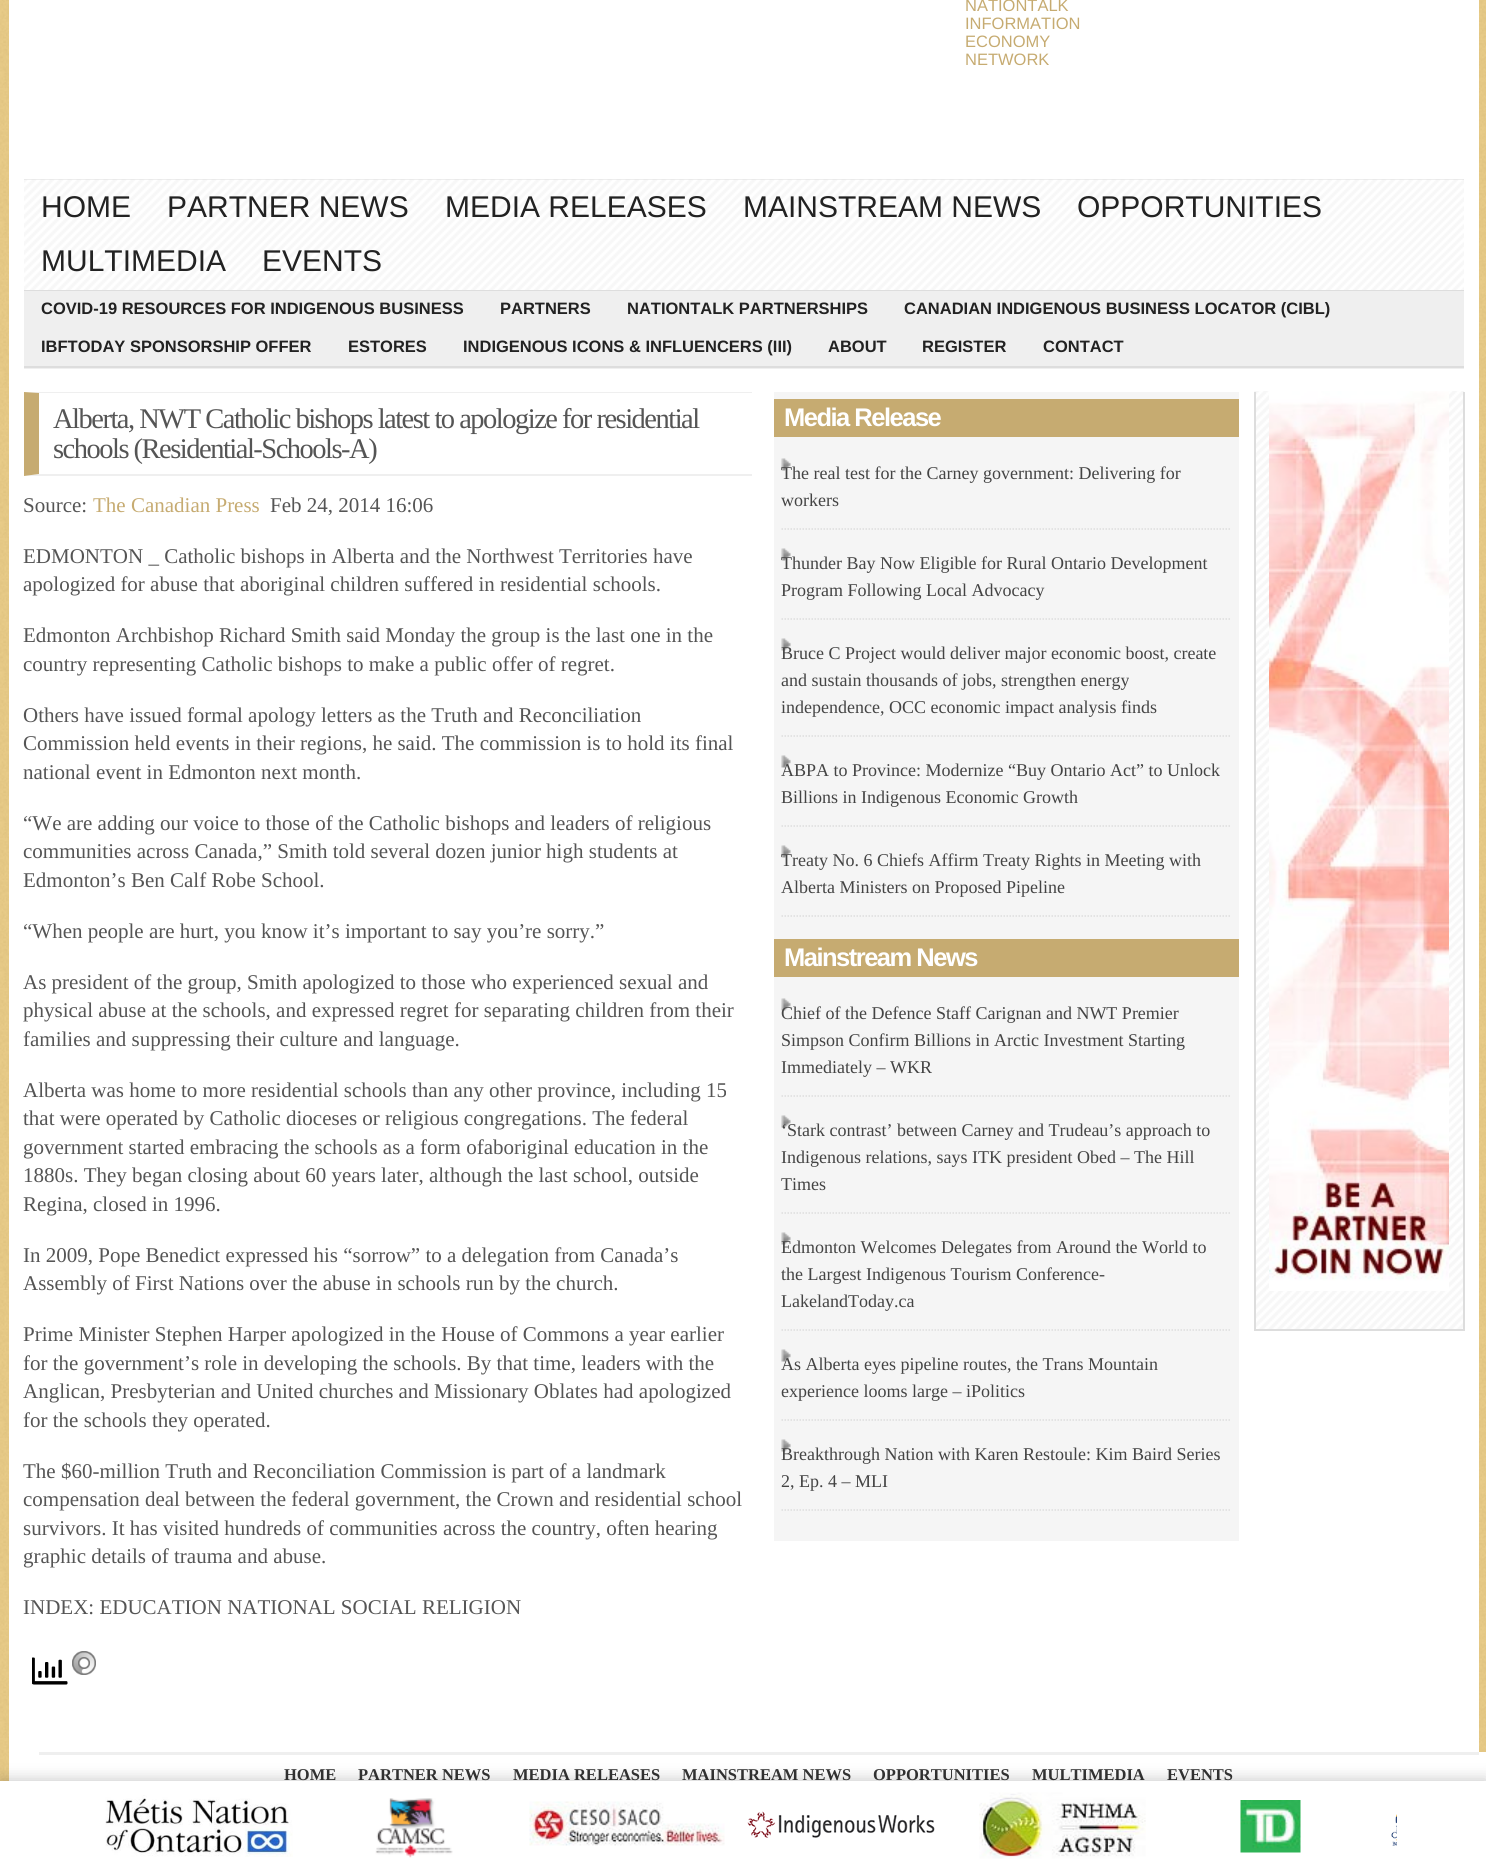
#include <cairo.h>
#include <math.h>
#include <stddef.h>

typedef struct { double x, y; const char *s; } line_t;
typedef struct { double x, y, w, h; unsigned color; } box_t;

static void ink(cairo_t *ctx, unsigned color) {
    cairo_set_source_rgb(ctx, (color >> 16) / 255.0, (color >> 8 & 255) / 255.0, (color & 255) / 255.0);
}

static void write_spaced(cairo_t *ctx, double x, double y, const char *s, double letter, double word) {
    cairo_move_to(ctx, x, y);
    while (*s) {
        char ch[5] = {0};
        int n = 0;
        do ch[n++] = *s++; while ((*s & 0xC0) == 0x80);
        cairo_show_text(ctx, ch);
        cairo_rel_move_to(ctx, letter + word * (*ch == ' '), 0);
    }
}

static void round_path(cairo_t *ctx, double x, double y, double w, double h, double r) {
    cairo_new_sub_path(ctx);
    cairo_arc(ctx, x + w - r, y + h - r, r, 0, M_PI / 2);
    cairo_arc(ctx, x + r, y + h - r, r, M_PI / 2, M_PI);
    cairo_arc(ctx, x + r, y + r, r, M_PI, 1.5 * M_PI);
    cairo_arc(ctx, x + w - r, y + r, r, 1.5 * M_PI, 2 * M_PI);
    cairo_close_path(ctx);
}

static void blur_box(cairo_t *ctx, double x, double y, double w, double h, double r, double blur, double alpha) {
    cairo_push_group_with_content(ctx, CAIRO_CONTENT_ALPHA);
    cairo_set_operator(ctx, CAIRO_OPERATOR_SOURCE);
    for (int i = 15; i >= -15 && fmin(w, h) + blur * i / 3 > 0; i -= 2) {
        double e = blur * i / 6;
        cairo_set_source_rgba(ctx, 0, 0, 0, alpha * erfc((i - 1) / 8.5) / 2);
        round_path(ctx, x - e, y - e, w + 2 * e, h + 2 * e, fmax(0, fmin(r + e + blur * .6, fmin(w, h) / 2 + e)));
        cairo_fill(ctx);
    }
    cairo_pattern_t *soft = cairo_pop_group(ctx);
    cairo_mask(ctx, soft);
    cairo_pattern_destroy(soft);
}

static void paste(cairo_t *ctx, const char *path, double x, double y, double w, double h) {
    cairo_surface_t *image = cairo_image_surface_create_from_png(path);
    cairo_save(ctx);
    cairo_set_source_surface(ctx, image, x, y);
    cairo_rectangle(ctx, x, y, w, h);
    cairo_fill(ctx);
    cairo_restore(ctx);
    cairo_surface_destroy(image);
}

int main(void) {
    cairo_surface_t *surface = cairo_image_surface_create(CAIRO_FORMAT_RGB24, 1486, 1870);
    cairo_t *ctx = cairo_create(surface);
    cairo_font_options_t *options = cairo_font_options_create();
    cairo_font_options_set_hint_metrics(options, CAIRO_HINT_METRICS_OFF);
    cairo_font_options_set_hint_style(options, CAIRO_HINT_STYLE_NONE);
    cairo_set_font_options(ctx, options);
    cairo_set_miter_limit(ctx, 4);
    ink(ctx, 0xFFFFFF);
    cairo_paint(ctx);
    paste(ctx, "media/1.png", 0, 0, 1486, 1781);
    ink(ctx, 0xFFFFFF);
    cairo_rectangle(ctx, 9, 0, 1470, 1781);
    cairo_fill(ctx);
    ink(ctx, 0xDDDDDD);
    cairo_rectangle(ctx, 24, 179, 1440, 1);
    cairo_fill(ctx);
    cairo_select_font_face(ctx, "Liberation Sans", CAIRO_FONT_SLANT_NORMAL, CAIRO_FONT_WEIGHT_NORMAL);
    cairo_set_font_size(ctx, 16.5);
    ink(ctx, 0xC6AB71);
    {
        static const line_t items[] = {
            {965, 11, "NATIONTALK"},
            {965, 29, "INFORMATION"},
            {965, 47, "ECONOMY"},
            {965, 65, "NETWORK"},
        };
        for (size_t i = 0; i < sizeof items / sizeof *items; i++) {
            cairo_move_to(ctx, items[i].x, items[i].y);
            cairo_show_text(ctx, items[i].s);
        }
    }
    paste(ctx, "media/2.png", 24, 179, 1440, 111);
    ink(ctx, 0xDDDDDD);
    cairo_rectangle(ctx, 24, 290, 1440, 1);
    cairo_fill(ctx);
    cairo_set_font_size(ctx, 30);
    ink(ctx, 0x222222);
    {
        static const line_t items[] = {
            {41, 217, "HOME"},
            {167, 217, "PARTNER NEWS"},
            {445, 217, "MEDIA RELEASES"},
            {743, 217, "MAINSTREAM NEWS"},
            {1077, 217, "OPPORTUNITIES"},
            {41, 271, "MULTIMEDIA"},
            {262, 271, "EVENTS"},
        };
        for (size_t i = 0; i < sizeof items / sizeof *items; i++) {
            cairo_move_to(ctx, items[i].x, items[i].y);
            cairo_show_text(ctx, items[i].s);
        }
    }
    ink(ctx, 0xEFEFEF);
    cairo_rectangle(ctx, 24, 291, 1440, 78);
    cairo_fill(ctx);
    ink(ctx, 0xDDDDDD);
    cairo_rectangle(ctx, 24, 366, 1440, 2);
    cairo_fill(ctx);
    cairo_select_font_face(ctx, "Liberation Sans", CAIRO_FONT_SLANT_NORMAL, CAIRO_FONT_WEIGHT_BOLD);
    cairo_set_font_size(ctx, 16.5);
    ink(ctx, 0x222222);
    {
        static const line_t items[] = {
            {41, 314, "COVID-19 RESOURCES FOR INDIGENOUS BUSINESS"},
            {500, 314, "PARTNERS"},
            {627, 314, "NATIONTALK PARTNERSHIPS"},
            {904, 314, "CANADIAN INDIGENOUS BUSINESS LOCATOR (CIBL)"},
            {41, 352, "IBFTODAY SPONSORSHIP OFFER"},
            {348, 352, "ESTORES"},
            {463, 352, "INDIGENOUS ICONS & INFLUENCERS (III)"},
            {828, 352, "ABOUT"},
            {922, 352, "REGISTER"},
            {1043, 352, "CONTACT"},
        };
        for (size_t i = 0; i < sizeof items / sizeof *items; i++) {
            cairo_move_to(ctx, items[i].x, items[i].y);
            cairo_show_text(ctx, items[i].s);
        }
    }
    ink(ctx, 0xEFEFEF);
    cairo_new_path(ctx);
    cairo_move_to(ctx, 24, 392);
    cairo_line_to(ctx, 752, 392);
    cairo_line_to(ctx, 752, 393);
    cairo_line_to(ctx, 39, 393);
    cairo_close_path(ctx);
    cairo_fill(ctx);
    cairo_new_path(ctx);
    cairo_move_to(ctx, 752, 476);
    cairo_line_to(ctx, 24, 476);
    cairo_line_to(ctx, 39, 474);
    cairo_line_to(ctx, 752, 474);
    cairo_close_path(ctx);
    cairo_fill(ctx);
    ink(ctx, 0xC6AB71);
    cairo_new_path(ctx);
    cairo_move_to(ctx, 24, 476);
    cairo_line_to(ctx, 24, 392);
    cairo_line_to(ctx, 39, 393);
    cairo_line_to(ctx, 39, 474);
    cairo_close_path(ctx);
    cairo_fill(ctx);
    cairo_select_font_face(ctx, "Liberation Serif", CAIRO_FONT_SLANT_NORMAL, CAIRO_FONT_WEIGHT_NORMAL);
    cairo_set_font_size(ctx, 28.5);
    ink(ctx, 0x555555);
    write_spaced(ctx, 53, 428, "Alberta, NWT Catholic bishops latest to apologize for residential", -1.5, 0);
    write_spaced(ctx, 53, 458, "schools (Residential-Schools-A)", -1.5, 0);
    cairo_set_font_size(ctx, 21);
    cairo_move_to(ctx, 23, 512);
    cairo_show_text(ctx, "Source:");
    ink(ctx, 0xC6AB71);
    cairo_move_to(ctx, 93, 512);
    cairo_show_text(ctx, "The Canadian Press");
    ink(ctx, 0x555555);
    {
        static const line_t items[] = {
            {270, 512, "Feb 24, 2014 16:06"},
            {23, 563, "EDMONTON _ Catholic bishops in Alberta and the Northwest Territories have"},
            {23, 591, "apologized for abuse that aboriginal children suffered in residential schools."},
            {23, 642, "Edmonton Archbishop Richard Smith said Monday the group is the last one in the"},
            {23, 671, "country representing Catholic bishops to make a public offer of regret."},
            {23, 722, "Others have issued formal apology letters as the Truth and Reconciliation"},
            {23, 750, "Commission held events in their regions, he said. The commission is to hold its final"},
            {23, 779, "national event in Edmonton next month."},
            {23, 830, "“We are adding our voice to those of the Catholic bishops and leaders of religious"},
            {23, 858, "communities across Canada,” Smith told several dozen junior high students at"},
            {23, 887, "Edmonton’s Ben Calf Robe School."},
            {23, 938, "“When people are hurt, you know it’s important to say you’re sorry.”"},
            {23, 989, "As president of the group, Smith apologized to those who experienced sexual and"},
            {23, 1017, "physical abuse at the schools, and expressed regret for separating children from their"},
            {23, 1046, "families and suppressing their culture and language."},
            {23, 1097, "Alberta was home to more residential schools than any other province, including 15"},
            {23, 1125, "that were operated by Catholic dioceses or religious congregations. The federal"},
            {23, 1154, "government started embracing the schools as a form ofaboriginal education in the"},
            {23, 1182, "1880s. They began closing about 60 years later, although the last school, outside"},
            {23, 1211, "Regina, closed in 1996."},
            {23, 1262, "In 2009, Pope Benedict expressed his “sorrow” to a delegation from Canada’s"},
            {23, 1290, "Assembly of First Nations over the abuse in schools run by the church."},
            {23, 1341, "Prime Minister Stephen Harper apologized in the House of Commons a year earlier"},
            {23, 1370, "for the government’s role in developing the schools. By that time, leaders with the"},
            {23, 1398, "Anglican, Presbyterian and United churches and Missionary Oblates had apologized"},
            {23, 1427, "for the schools they operated."},
            {23, 1478, "The $60-million Truth and Reconciliation Commission is part of a landmark"},
            {23, 1506, "compensation deal between the federal government, the Crown and residential school"},
            {23, 1535, "survivors. It has visited hundreds of communities across the country, often hearing"},
            {23, 1563, "graphic details of trauma and abuse."},
            {23, 1614, "INDEX: EDUCATION NATIONAL SOCIAL RELIGION"},
        };
        for (size_t i = 0; i < sizeof items / sizeof *items; i++) {
            cairo_move_to(ctx, items[i].x, items[i].y);
            cairo_show_text(ctx, items[i].s);
        }
    }
    paste(ctx, "media/3.png", 32, 1657, 36, 28);
    paste(ctx, "media/4.png", 72, 1651, 24, 24);
    ink(ctx, 0xF5F5F5);
    cairo_rectangle(ctx, 774, 392, 465, 1149);
    cairo_fill(ctx);
    ink(ctx, 0xC6AB71);
    cairo_rectangle(ctx, 774, 399, 465, 38);
    cairo_fill(ctx);
    cairo_select_font_face(ctx, "Liberation Sans", CAIRO_FONT_SLANT_NORMAL, CAIRO_FONT_WEIGHT_BOLD);
    cairo_set_font_size(ctx, 25.5);
    ink(ctx, 0xFFFFFF);
    write_spaced(ctx, 784, 426, "Media Release", -1.5, 0);
    paste(ctx, "media/5.png", 781, 458, 10, 13);
    cairo_new_path(ctx);
    cairo_move_to(ctx, 781.5, 529);
    cairo_line_to(ctx, 1231.5, 529);
    ink(ctx, 0xDDDDDD);
    cairo_set_line_width(ctx, 1.5);
    cairo_set_dash(ctx, (double[]){1.5, 1.5}, 2, 0);
    cairo_stroke(ctx);
    cairo_select_font_face(ctx, "Liberation Serif", CAIRO_FONT_SLANT_NORMAL, CAIRO_FONT_WEIGHT_NORMAL);
    cairo_set_font_size(ctx, 18);
    ink(ctx, 0x444444);
    cairo_move_to(ctx, 781, 479);
    cairo_show_text(ctx, "The real test for the Carney government: Delivering for");
    cairo_move_to(ctx, 781, 506);
    cairo_show_text(ctx, "workers");
    paste(ctx, "media/5.png", 781, 548, 10, 13);
    cairo_new_path(ctx);
    cairo_move_to(ctx, 781.5, 619);
    cairo_line_to(ctx, 1231.5, 619);
    ink(ctx, 0xDDDDDD);
    cairo_stroke(ctx);
    ink(ctx, 0x444444);
    cairo_move_to(ctx, 781, 569);
    cairo_show_text(ctx, "Thunder Bay Now Eligible for Rural Ontario Development");
    cairo_move_to(ctx, 781, 596);
    cairo_show_text(ctx, "Program Following Local Advocacy");
    paste(ctx, "media/5.png", 781, 638, 10, 13);
    cairo_new_path(ctx);
    cairo_move_to(ctx, 781.5, 736);
    cairo_line_to(ctx, 1231.5, 736);
    ink(ctx, 0xDDDDDD);
    cairo_stroke(ctx);
    ink(ctx, 0x444444);
    {
        static const line_t items[] = {
            {781, 659, "Bruce C Project would deliver major economic boost, create"},
            {781, 686, "and sustain thousands of jobs, strengthen energy"},
            {781, 713, "independence, OCC economic impact analysis finds"},
        };
        for (size_t i = 0; i < sizeof items / sizeof *items; i++) {
            cairo_move_to(ctx, items[i].x, items[i].y);
            cairo_show_text(ctx, items[i].s);
        }
    }
    paste(ctx, "media/5.png", 781, 755, 10, 13);
    cairo_new_path(ctx);
    cairo_move_to(ctx, 781.5, 826);
    cairo_line_to(ctx, 1231.5, 826);
    ink(ctx, 0xDDDDDD);
    cairo_stroke(ctx);
    ink(ctx, 0x444444);
    cairo_move_to(ctx, 781, 776);
    cairo_show_text(ctx, "ABPA to Province: Modernize “Buy Ontario Act” to Unlock");
    cairo_move_to(ctx, 781, 803);
    cairo_show_text(ctx, "Billions in Indigenous Economic Growth");
    paste(ctx, "media/5.png", 781, 845, 10, 13);
    cairo_new_path(ctx);
    cairo_move_to(ctx, 781.5, 916);
    cairo_line_to(ctx, 1231.5, 916);
    ink(ctx, 0xDDDDDD);
    cairo_stroke(ctx);
    ink(ctx, 0x444444);
    cairo_move_to(ctx, 781, 866);
    cairo_show_text(ctx, "Treaty No. 6 Chiefs Affirm Treaty Rights in Meeting with");
    cairo_move_to(ctx, 781, 893);
    cairo_show_text(ctx, "Alberta Ministers on Proposed Pipeline");
    ink(ctx, 0xC6AB71);
    cairo_rectangle(ctx, 774, 939, 465, 38);
    cairo_fill(ctx);
    cairo_select_font_face(ctx, "Liberation Sans", CAIRO_FONT_SLANT_NORMAL, CAIRO_FONT_WEIGHT_BOLD);
    cairo_set_font_size(ctx, 25.5);
    ink(ctx, 0xFFFFFF);
    write_spaced(ctx, 784, 966, "Mainstream News", -1.5, 0);
    paste(ctx, "media/5.png", 781, 998, 10, 13);
    cairo_new_path(ctx);
    cairo_move_to(ctx, 781.5, 1096);
    cairo_line_to(ctx, 1231.5, 1096);
    ink(ctx, 0xDDDDDD);
    cairo_stroke(ctx);
    cairo_select_font_face(ctx, "Liberation Serif", CAIRO_FONT_SLANT_NORMAL, CAIRO_FONT_WEIGHT_NORMAL);
    cairo_set_font_size(ctx, 18);
    ink(ctx, 0x444444);
    {
        static const line_t items[] = {
            {781, 1019, "Chief of the Defence Staff Carignan and NWT Premier"},
            {781, 1046, "Simpson Confirm Billions in Arctic Investment Starting"},
            {781, 1073, "Immediately – WKR"},
        };
        for (size_t i = 0; i < sizeof items / sizeof *items; i++) {
            cairo_move_to(ctx, items[i].x, items[i].y);
            cairo_show_text(ctx, items[i].s);
        }
    }
    paste(ctx, "media/5.png", 781, 1115, 10, 13);
    cairo_new_path(ctx);
    cairo_move_to(ctx, 781.5, 1213);
    cairo_line_to(ctx, 1231.5, 1213);
    ink(ctx, 0xDDDDDD);
    cairo_stroke(ctx);
    ink(ctx, 0x444444);
    {
        static const line_t items[] = {
            {781, 1136, "‘Stark contrast’ between Carney and Trudeau’s approach to"},
            {781, 1163, "Indigenous relations, says ITK president Obed – The Hill"},
            {781, 1190, "Times"},
        };
        for (size_t i = 0; i < sizeof items / sizeof *items; i++) {
            cairo_move_to(ctx, items[i].x, items[i].y);
            cairo_show_text(ctx, items[i].s);
        }
    }
    paste(ctx, "media/5.png", 781, 1232, 10, 13);
    cairo_new_path(ctx);
    cairo_move_to(ctx, 781.5, 1330);
    cairo_line_to(ctx, 1231.5, 1330);
    ink(ctx, 0xDDDDDD);
    cairo_stroke(ctx);
    ink(ctx, 0x444444);
    {
        static const line_t items[] = {
            {781, 1253, "Edmonton Welcomes Delegates from Around the World to"},
            {781, 1280, "the Largest Indigenous Tourism Conference-"},
            {781, 1307, "LakelandToday.ca"},
        };
        for (size_t i = 0; i < sizeof items / sizeof *items; i++) {
            cairo_move_to(ctx, items[i].x, items[i].y);
            cairo_show_text(ctx, items[i].s);
        }
    }
    paste(ctx, "media/5.png", 781, 1349, 10, 13);
    cairo_new_path(ctx);
    cairo_move_to(ctx, 781.5, 1420);
    cairo_line_to(ctx, 1231.5, 1420);
    ink(ctx, 0xDDDDDD);
    cairo_stroke(ctx);
    ink(ctx, 0x444444);
    cairo_move_to(ctx, 781, 1370);
    cairo_show_text(ctx, "As Alberta eyes pipeline routes, the Trans Mountain");
    cairo_move_to(ctx, 781, 1397);
    cairo_show_text(ctx, "experience looms large – iPolitics");
    paste(ctx, "media/5.png", 781, 1439, 10, 13);
    cairo_new_path(ctx);
    cairo_move_to(ctx, 781.5, 1510);
    cairo_line_to(ctx, 1231.5, 1510);
    ink(ctx, 0xDDDDDD);
    cairo_stroke(ctx);
    ink(ctx, 0x444444);
    cairo_move_to(ctx, 781, 1460);
    cairo_show_text(ctx, "Breakthrough Nation with Karen Restoule: Kim Baird Series");
    cairo_move_to(ctx, 781, 1487);
    cairo_show_text(ctx, "2, Ep. 4 – MLI");
    paste(ctx, "media/6.png", 1254, 391, 210, 938);
    {
        static const box_t items[] = {
            {1463, 392, 2, 939, 0xDDDDDD},
            {1254, 1329, 210, 2, 0xDDDDDD},
            {1254, 392, 2, 939, 0xDDDDDD},
        };
        for (size_t i = 0; i < sizeof items / sizeof *items; i++) {
            ink(ctx, items[i].color);
            cairo_rectangle(ctx, items[i].x, items[i].y, items[i].w, items[i].h);
            cairo_fill(ctx);
        }
    }
    paste(ctx, "media/7.png", 1269, 391, 180, 900);
    ink(ctx, 0xFFFFFF);
    cairo_rectangle(ctx, 1479, 1752, 7, 29);
    cairo_fill(ctx);
    ink(ctx, 0xEFEFEF);
    cairo_rectangle(ctx, 39, 1752, 1440, 3);
    cairo_fill(ctx);
    cairo_select_font_face(ctx, "Liberation Serif", CAIRO_FONT_SLANT_NORMAL, CAIRO_FONT_WEIGHT_BOLD);
    cairo_set_font_size(ctx, 16.5);
    ink(ctx, 0x333333);
    {
        static const line_t items[] = {
            {284, 1780, "HOME"},
            {358, 1780, "PARTNER NEWS"},
            {513, 1780, "MEDIA RELEASES"},
            {682, 1780, "MAINSTREAM NEWS"},
            {873, 1780, "OPPORTUNITIES"},
            {1032, 1780, "MULTIMEDIA"},
            {1167, 1780, "EVENTS"},
        };
        for (size_t i = 0; i < sizeof items / sizeof *items; i++) {
            cairo_move_to(ctx, items[i].x, items[i].y);
            cairo_show_text(ctx, items[i].s);
        }
    }
    ink(ctx, 0x000000);
    blur_box(ctx, 0, 1779, 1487, 90, 0, 7.5, 0.2);
    ink(ctx, 0xFFFFFF);
    cairo_rectangle(ctx, 0, 1781, 1486, 89);
    cairo_fill(ctx);
    paste(ctx, "media/8.png", 105, 1795, 188, 62);
    paste(ctx, "media/9.png", 375, 1798, 78, 60);
    paste(ctx, "media/10.png", 529, 1801, 196, 45);
    paste(ctx, "media/11.png", 747, 1811, 188, 27);
    paste(ctx, "media/12.png", 979, 1792, 167, 67);
    paste(ctx, "media/13.png", 1240, 1800, 61, 53);
    paste(ctx, "media/14.png", 1391, 1814, 6, 32);
    cairo_surface_write_to_png(surface, "image.png");
    cairo_font_options_destroy(options);
    cairo_destroy(ctx);
    cairo_surface_destroy(surface);
    return 0;
}
